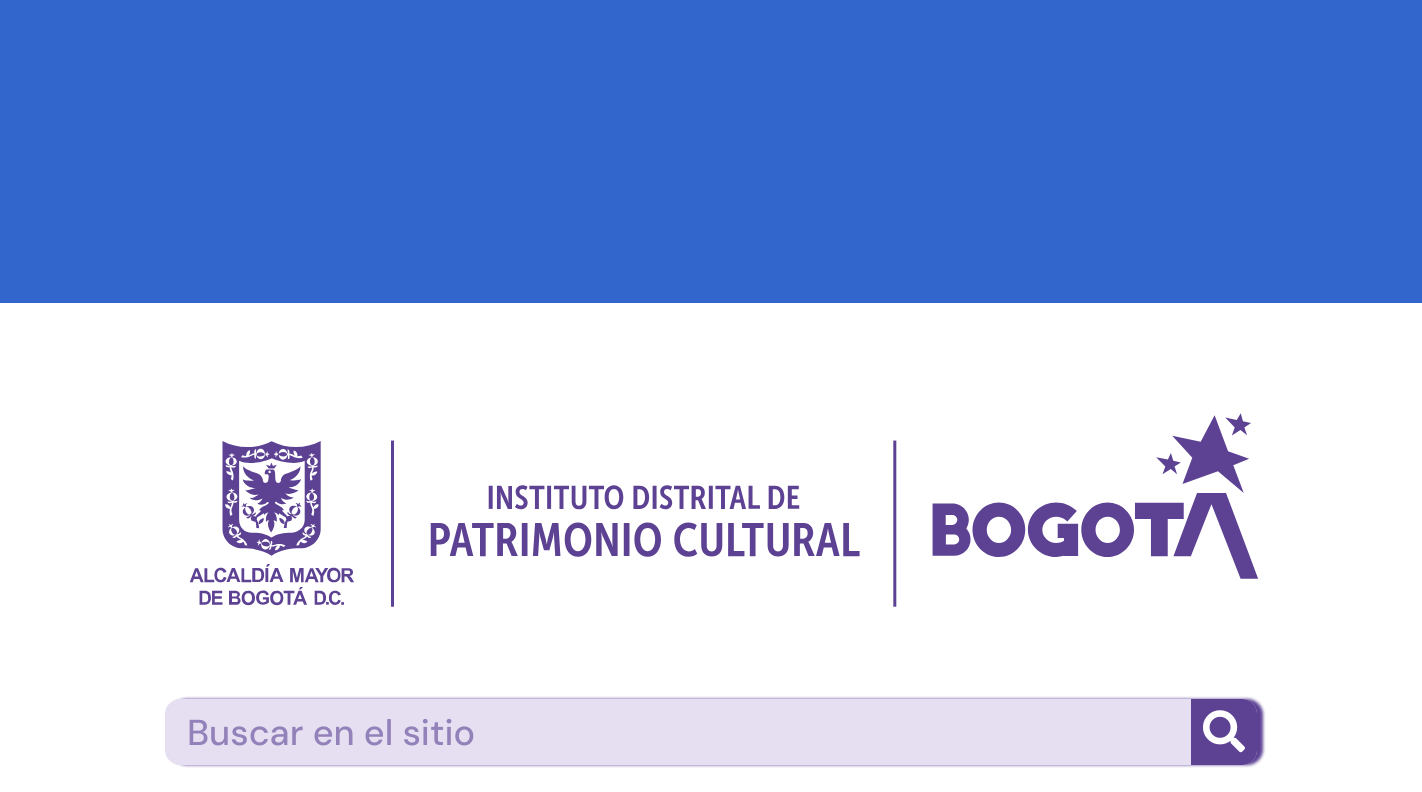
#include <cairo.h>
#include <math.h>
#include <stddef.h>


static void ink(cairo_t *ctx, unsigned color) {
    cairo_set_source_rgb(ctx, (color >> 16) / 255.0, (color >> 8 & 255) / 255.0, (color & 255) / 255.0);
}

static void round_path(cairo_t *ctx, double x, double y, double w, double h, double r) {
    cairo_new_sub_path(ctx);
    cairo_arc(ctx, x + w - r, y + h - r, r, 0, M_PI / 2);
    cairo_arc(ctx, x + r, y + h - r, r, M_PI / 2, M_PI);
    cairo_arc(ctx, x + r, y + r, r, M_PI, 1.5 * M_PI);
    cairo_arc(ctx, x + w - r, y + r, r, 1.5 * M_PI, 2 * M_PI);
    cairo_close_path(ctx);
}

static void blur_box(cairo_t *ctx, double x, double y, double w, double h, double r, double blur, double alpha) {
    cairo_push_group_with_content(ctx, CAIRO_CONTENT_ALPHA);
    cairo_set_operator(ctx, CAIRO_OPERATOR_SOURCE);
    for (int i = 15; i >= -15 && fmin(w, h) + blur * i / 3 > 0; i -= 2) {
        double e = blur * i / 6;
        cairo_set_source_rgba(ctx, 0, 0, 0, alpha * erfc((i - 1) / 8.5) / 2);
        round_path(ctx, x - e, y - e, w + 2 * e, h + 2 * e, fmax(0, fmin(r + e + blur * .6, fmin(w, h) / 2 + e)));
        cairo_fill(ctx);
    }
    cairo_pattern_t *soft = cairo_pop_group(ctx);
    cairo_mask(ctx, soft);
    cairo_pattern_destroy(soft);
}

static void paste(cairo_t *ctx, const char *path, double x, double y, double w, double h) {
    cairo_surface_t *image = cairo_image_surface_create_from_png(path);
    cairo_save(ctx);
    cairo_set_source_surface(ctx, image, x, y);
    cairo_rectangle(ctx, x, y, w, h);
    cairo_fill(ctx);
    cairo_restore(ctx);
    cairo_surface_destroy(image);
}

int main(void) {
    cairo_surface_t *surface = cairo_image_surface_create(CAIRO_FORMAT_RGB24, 1422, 792);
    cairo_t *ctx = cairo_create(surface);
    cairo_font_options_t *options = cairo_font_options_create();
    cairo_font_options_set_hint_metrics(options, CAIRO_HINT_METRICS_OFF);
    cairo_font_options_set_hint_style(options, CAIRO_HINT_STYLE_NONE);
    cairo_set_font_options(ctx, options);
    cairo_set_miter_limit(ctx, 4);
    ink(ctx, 0x3366CC);
    cairo_paint(ctx);
    ink(ctx, 0xFFFFFF);
    cairo_rectangle(ctx, 0, 303, 1422, 489);
    cairo_fill(ctx);
    paste(ctx, "media/1.png", 189, 413, 1069, 194);
    ink(ctx, 0x5D4293);
    blur_box(ctx, 171, 699, 1092, 66, 15, 1.5, 1);
    ink(ctx, 0xE5DFF1);
    round_path(ctx, 165, 699, 1092, 66, 15);
    cairo_fill(ctx);
    cairo_select_font_face(ctx, "DM Sans Medium", CAIRO_FONT_SLANT_NORMAL, CAIRO_FONT_WEIGHT_NORMAL);
    cairo_set_font_size(ctx, 36);
    ink(ctx, 0x9381B9);
    cairo_move_to(ctx, 187, 745);
    cairo_show_text(ctx, "Buscar en el sitio");
    ink(ctx, 0x5D4293);
    cairo_new_path(ctx);
    cairo_move_to(ctx, 1191, 699);
    cairo_line_to(ctx, 1242, 699);
    cairo_curve_to(ctx, 1250.5, 699, 1257, 705.5, 1257, 714);
    cairo_line_to(ctx, 1257, 750);
    cairo_curve_to(ctx, 1257, 758.5, 1250.5, 765, 1242, 765);
    cairo_line_to(ctx, 1191, 765);
    cairo_close_path(ctx);
    cairo_fill(ctx);
    paste(ctx, "media/2.png", 1203, 710, 42, 43);
    cairo_surface_write_to_png(surface, "image.png");
    cairo_font_options_destroy(options);
    cairo_destroy(ctx);
    cairo_surface_destroy(surface);
    return 0;
}
